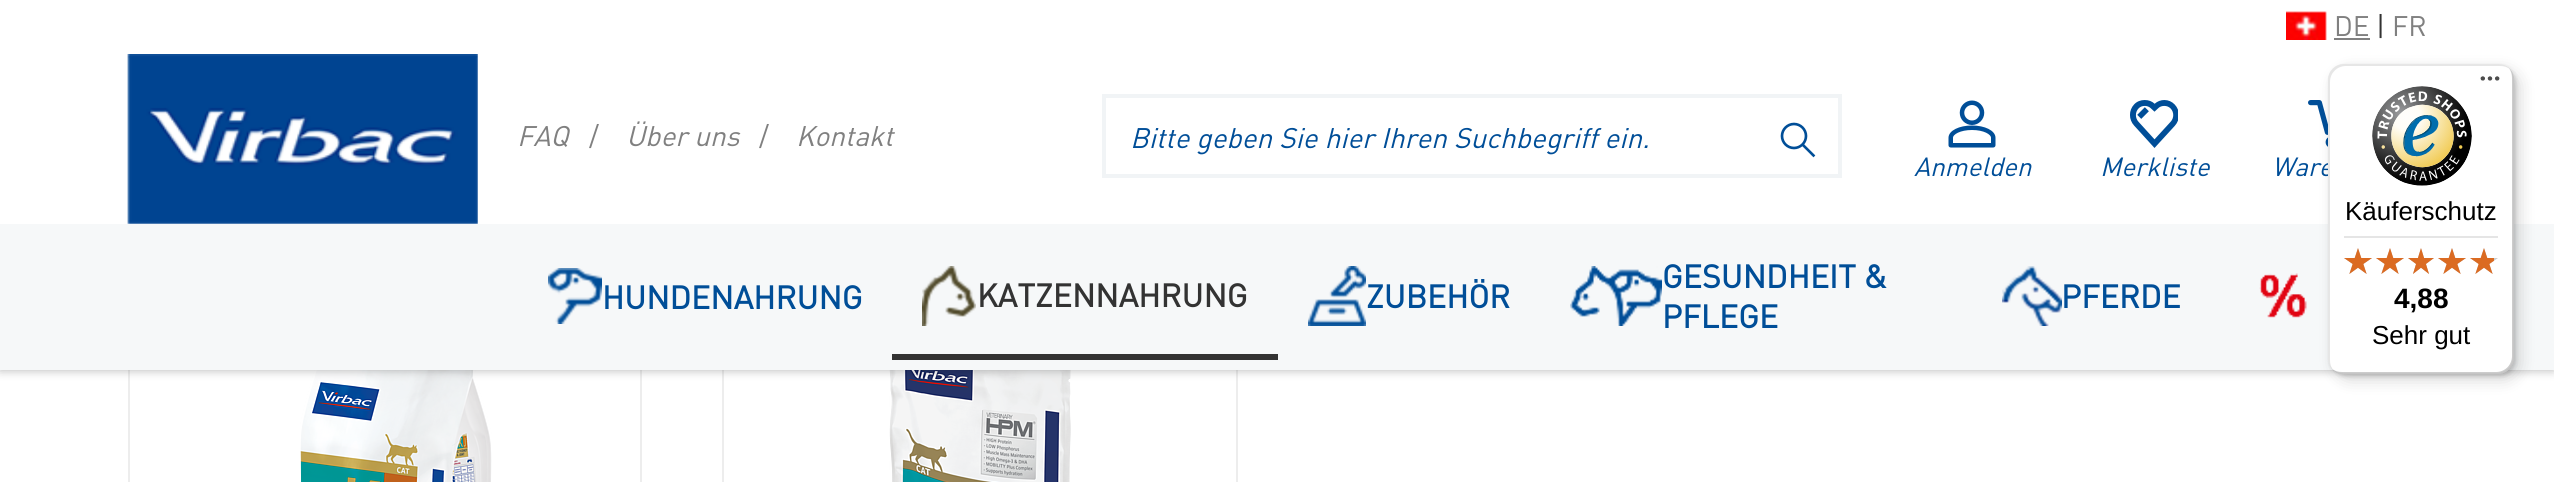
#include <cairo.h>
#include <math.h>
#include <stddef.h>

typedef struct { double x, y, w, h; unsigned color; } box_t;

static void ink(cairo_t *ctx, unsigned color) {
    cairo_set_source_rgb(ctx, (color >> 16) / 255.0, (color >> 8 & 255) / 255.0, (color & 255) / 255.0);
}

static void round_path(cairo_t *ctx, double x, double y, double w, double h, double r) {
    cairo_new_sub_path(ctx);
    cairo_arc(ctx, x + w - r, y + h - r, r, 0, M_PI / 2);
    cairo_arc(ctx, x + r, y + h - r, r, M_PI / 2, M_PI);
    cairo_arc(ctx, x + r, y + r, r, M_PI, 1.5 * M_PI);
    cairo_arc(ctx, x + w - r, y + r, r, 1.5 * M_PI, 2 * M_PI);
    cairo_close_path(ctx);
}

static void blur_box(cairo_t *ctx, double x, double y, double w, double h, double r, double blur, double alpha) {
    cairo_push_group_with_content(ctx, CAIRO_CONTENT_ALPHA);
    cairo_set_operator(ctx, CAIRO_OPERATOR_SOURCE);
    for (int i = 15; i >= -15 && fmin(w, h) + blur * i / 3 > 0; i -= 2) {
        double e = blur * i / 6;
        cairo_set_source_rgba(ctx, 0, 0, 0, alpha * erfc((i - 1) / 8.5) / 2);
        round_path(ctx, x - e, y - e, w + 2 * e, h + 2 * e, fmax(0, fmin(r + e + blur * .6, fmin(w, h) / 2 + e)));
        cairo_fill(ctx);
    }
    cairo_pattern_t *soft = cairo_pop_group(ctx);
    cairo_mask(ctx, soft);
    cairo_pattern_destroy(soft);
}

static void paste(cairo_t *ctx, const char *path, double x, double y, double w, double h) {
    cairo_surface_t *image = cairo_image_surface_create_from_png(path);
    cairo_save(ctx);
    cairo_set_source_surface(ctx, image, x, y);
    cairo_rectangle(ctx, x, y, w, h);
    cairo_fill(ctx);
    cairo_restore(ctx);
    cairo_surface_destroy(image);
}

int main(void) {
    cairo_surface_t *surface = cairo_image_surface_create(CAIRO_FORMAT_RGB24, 2554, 482);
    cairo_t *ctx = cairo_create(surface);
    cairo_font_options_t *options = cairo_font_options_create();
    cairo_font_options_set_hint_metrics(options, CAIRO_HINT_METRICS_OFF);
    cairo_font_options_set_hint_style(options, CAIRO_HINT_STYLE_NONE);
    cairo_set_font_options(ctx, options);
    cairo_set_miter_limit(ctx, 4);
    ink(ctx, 0xFFFFFF);
    cairo_paint(ctx);
    cairo_rectangle(ctx, 129, 273, 512, 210);
    ink(ctx, 0xEDEDED);
    cairo_stroke(ctx);
    paste(ctx, "media/13.png", 300, 370, 192, 112);
    cairo_rectangle(ctx, 723, 273, 514, 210);
    cairo_stroke(ctx);
    paste(ctx, "media/14.png", 889, 370, 182, 112);
    ink(ctx, 0x000000);
    blur_box(ctx, 0, 0, 2554, 370, 0, 5, 0.3);
    ink(ctx, 0xFFFFFF);
    cairo_rectangle(ctx, 0, 0, 2554, 224);
    cairo_fill(ctx);
    paste(ctx, "media/1.png", 2286, 11, 41, 29);
    cairo_select_font_face(ctx, "DIN", CAIRO_FONT_SLANT_NORMAL, CAIRO_FONT_WEIGHT_NORMAL);
    cairo_set_font_size(ctx, 28);
    ink(ctx, 0x808080);
    cairo_move_to(ctx, 2334, 36);
    cairo_show_text(ctx, "DE");
    cairo_rectangle(ctx, 2334, 38, 36, 2);
    cairo_fill(ctx);
    ink(ctx, 0x333333);
    cairo_move_to(ctx, 2376, 36);
    cairo_show_text(ctx, "|");
    ink(ctx, 0x808080);
    cairo_move_to(ctx, 2392, 36);
    cairo_show_text(ctx, "FR");
    paste(ctx, "media/2.png", 127, 54, 351, 170);
    cairo_select_font_face(ctx, "DIN", CAIRO_FONT_SLANT_ITALIC, CAIRO_FONT_WEIGHT_NORMAL);
    cairo_move_to(ctx, 517, 146);
    cairo_show_text(ctx, "FAQ");
    cairo_select_font_face(ctx, "DIN", CAIRO_FONT_SLANT_NORMAL, CAIRO_FONT_WEIGHT_NORMAL);
    cairo_move_to(ctx, 589, 146);
    cairo_show_text(ctx, "/");
    cairo_select_font_face(ctx, "DIN", CAIRO_FONT_SLANT_ITALIC, CAIRO_FONT_WEIGHT_NORMAL);
    cairo_move_to(ctx, 626, 146);
    cairo_show_text(ctx, "Über uns");
    cairo_select_font_face(ctx, "DIN", CAIRO_FONT_SLANT_NORMAL, CAIRO_FONT_WEIGHT_NORMAL);
    cairo_move_to(ctx, 759, 146);
    cairo_show_text(ctx, "/");
    cairo_select_font_face(ctx, "DIN", CAIRO_FONT_SLANT_ITALIC, CAIRO_FONT_WEIGHT_NORMAL);
    cairo_move_to(ctx, 796, 146);
    cairo_show_text(ctx, "Kontakt");
    {
        static const box_t items[] = {
            {1102, 94, 740, 4, 0xF1F4F6},
            {1102, 174, 658, 4, 0xF1F4F6},
            {1102, 94, 4, 84, 0xF1F4F6},
        };
        for (size_t i = 0; i < sizeof items / sizeof *items; i++) {
            ink(ctx, items[i].color);
            cairo_rectangle(ctx, items[i].x, items[i].y, items[i].w, items[i].h);
            cairo_fill(ctx);
        }
    }
    ink(ctx, 0x004E98);
    cairo_move_to(ctx, 1130, 148);
    cairo_show_text(ctx, "Bitte geben Sie hier Ihren Suchbegriff ein.");
    ink(ctx, 0xF1F4F6);
    cairo_rectangle(ctx, 1838, 94, 4, 84);
    cairo_fill(ctx);
    cairo_rectangle(ctx, 1758, 174, 84, 4);
    cairo_fill(ctx);
    paste(ctx, "media/3.png", 1780, 122, 36, 36);
    paste(ctx, "media/4.png", 1948, 100, 48, 48);
    cairo_set_font_size(ctx, 26);
    ink(ctx, 0x004E98);
    cairo_move_to(ctx, 1914, 176);
    cairo_show_text(ctx, "Anmelden");
    paste(ctx, "media/5.png", 2130, 100, 48, 48);
    cairo_move_to(ctx, 2100, 176);
    cairo_show_text(ctx, "Merkliste");
    paste(ctx, "media/6.png", 2308, 100, 20, 47);
    cairo_move_to(ctx, 2272, 176);
    cairo_show_text(ctx, "Ware");
    ink(ctx, 0xF6F8F9);
    cairo_rectangle(ctx, 0, 224, 2554, 146);
    cairo_fill(ctx);
    paste(ctx, "media/7.png", 548, 268, 54, 56);
    cairo_select_font_face(ctx, "DIN", CAIRO_FONT_SLANT_NORMAL, CAIRO_FONT_WEIGHT_BOLD);
    cairo_set_font_size(ctx, 32);
    ink(ctx, 0x004E98);
    cairo_move_to(ctx, 602, 309);
    cairo_show_text(ctx, "HUNDENAHRUNG");
    ink(ctx, 0x333333);
    cairo_rectangle(ctx, 892, 354, 386, 6);
    cairo_fill(ctx);
    paste(ctx, "media/8.png", 922, 266, 54, 60);
    cairo_move_to(ctx, 977, 307);
    cairo_show_text(ctx, "KATZENNAHRUNG");
    paste(ctx, "media/9.png", 1308, 266, 58, 60);
    ink(ctx, 0x004E98);
    cairo_move_to(ctx, 1366, 308);
    cairo_show_text(ctx, "ZUBEHÖR");
    paste(ctx, "media/10.png", 1570, 266, 92, 60);
    cairo_move_to(ctx, 1662, 288);
    cairo_show_text(ctx, "GESUNDHEIT &");
    cairo_move_to(ctx, 1662, 328);
    cairo_show_text(ctx, "PFLEGE");
    paste(ctx, "media/11.png", 2002, 266, 60, 60);
    cairo_move_to(ctx, 2061, 308);
    cairo_show_text(ctx, "PFERDE");
    paste(ctx, "media/12.png", 2259, 273, 48, 45);
    ink(ctx, 0x000000);
    blur_box(ctx, 2334, 70, 186, 310, 16, 8, 0.15);
    blur_box(ctx, 2330, 66, 186, 310, 16, 2, 0.15);
    ink(ctx, 0xFFFFFF);
    round_path(ctx, 2328, 64, 186, 310, 16);
    cairo_fill(ctx);
    cairo_set_source_rgba(ctx, 0, 0, 0, 0.1);
    cairo_new_path(ctx);
    cairo_move_to(ctx, 2346, 66);
    cairo_line_to(ctx, 2500, 66);
    cairo_curve_to(ctx, 2504, 66, 2507, 67, 2510, 69);
    cairo_curve_to(ctx, 2507, 66, 2503, 64, 2498, 64);
    cairo_line_to(ctx, 2344, 64);
    cairo_curve_to(ctx, 2335, 64, 2328, 71, 2328, 80);
    cairo_line_to(ctx, 2328, 358);
    cairo_curve_to(ctx, 2328, 363, 2330, 367, 2333, 370);
    cairo_curve_to(ctx, 2331, 367, 2330, 364, 2330, 360);
    cairo_line_to(ctx, 2330, 82);
    cairo_curve_to(ctx, 2330, 73, 2337, 66, 2346, 66);
    cairo_close_path(ctx);
    cairo_fill(ctx);
    cairo_set_source_rgba(ctx, 0, 0, 0, 0.2);
    cairo_new_path(ctx);
    cairo_move_to(ctx, 2332, 369);
    cairo_curve_to(ctx, 2335, 372, 2339, 374, 2344, 374);
    cairo_line_to(ctx, 2498, 374);
    cairo_curve_to(ctx, 2507, 374, 2514, 367, 2514, 358);
    cairo_line_to(ctx, 2514, 80);
    cairo_curve_to(ctx, 2514, 75, 2512, 71, 2509, 68);
    cairo_curve_to(ctx, 2511, 71, 2512, 74, 2512, 78);
    cairo_line_to(ctx, 2512, 356);
    cairo_curve_to(ctx, 2512, 365, 2505, 372, 2496, 372);
    cairo_line_to(ctx, 2342, 372);
    cairo_curve_to(ctx, 2338, 372, 2335, 371, 2332, 369);
    cairo_close_path(ctx);
    cairo_fill(ctx);
    cairo_set_source_rgba(ctx, 0.196, 0.196, 0.196, 0.2);
    cairo_new_path(ctx);
    cairo_move_to(ctx, 2333, 369);
    cairo_curve_to(ctx, 2336, 372, 2340, 374, 2344, 374);
    cairo_line_to(ctx, 2498, 374);
    cairo_curve_to(ctx, 2507, 374, 2514, 367, 2514, 358);
    cairo_line_to(ctx, 2514, 80);
    cairo_curve_to(ctx, 2514, 76, 2512, 72, 2509, 69);
    cairo_curve_to(ctx, 2512, 72, 2513, 75, 2513, 79);
    cairo_line_to(ctx, 2513, 357);
    cairo_curve_to(ctx, 2513, 366, 2506, 373, 2497, 373);
    cairo_line_to(ctx, 2343, 373);
    cairo_curve_to(ctx, 2339, 373, 2336, 372, 2333, 369);
    cairo_close_path(ctx);
    cairo_fill(ctx);
    cairo_set_source_rgba(ctx, 1, 1, 1, 0.3);
    cairo_new_path(ctx);
    cairo_move_to(ctx, 2333, 369);
    cairo_curve_to(ctx, 2336, 372, 2340, 374, 2344, 374);
    cairo_line_to(ctx, 2498, 374);
    cairo_curve_to(ctx, 2507, 374, 2514, 367, 2514, 358);
    cairo_line_to(ctx, 2514, 80);
    cairo_curve_to(ctx, 2514, 76, 2512, 72, 2509, 69);
    cairo_curve_to(ctx, 2512, 72, 2513, 75, 2513, 79);
    cairo_line_to(ctx, 2513, 357);
    cairo_curve_to(ctx, 2513, 366, 2506, 373, 2497, 373);
    cairo_line_to(ctx, 2343, 373);
    cairo_curve_to(ctx, 2339, 373, 2336, 372, 2333, 369);
    cairo_close_path(ctx);
    cairo_fill(ctx);
    paste(ctx, "media/15.png", 2480, 76, 20, 5);
    paste(ctx, "media/16.png", 2372, 86, 100, 100);
    cairo_select_font_face(ctx, "Liberation Sans", CAIRO_FONT_SLANT_NORMAL, CAIRO_FONT_WEIGHT_NORMAL);
    cairo_set_font_size(ctx, 26);
    ink(ctx, 0x000000);
    cairo_move_to(ctx, 2345, 220);
    cairo_show_text(ctx, "Käuferschutz");
    ink(ctx, 0xE5E5E5);
    cairo_rectangle(ctx, 2344, 236, 154, 2);
    cairo_fill(ctx);
    paste(ctx, "media/17.png", 2344, 248, 28, 26);
    paste(ctx, "media/17.png", 2376, 248, 28, 26);
    paste(ctx, "media/18.png", 2408, 248, 26, 26);
    paste(ctx, "media/17.png", 2438, 248, 28, 26);
    paste(ctx, "media/17.png", 2470, 248, 28, 26);
    paste(ctx, "media/19.png", 2344, 248, 28, 26);
    paste(ctx, "media/19.png", 2376, 248, 28, 26);
    paste(ctx, "media/20.png", 2408, 248, 26, 26);
    paste(ctx, "media/19.png", 2438, 248, 28, 26);
    paste(ctx, "media/21.png", 2470, 248, 24, 26);
    cairo_select_font_face(ctx, "Liberation Sans", CAIRO_FONT_SLANT_NORMAL, CAIRO_FONT_WEIGHT_BOLD);
    cairo_set_font_size(ctx, 28);
    ink(ctx, 0x000000);
    cairo_move_to(ctx, 2394, 308);
    cairo_show_text(ctx, "4,88");
    cairo_select_font_face(ctx, "Liberation Sans", CAIRO_FONT_SLANT_NORMAL, CAIRO_FONT_WEIGHT_NORMAL);
    cairo_set_font_size(ctx, 26);
    cairo_move_to(ctx, 2372, 344);
    cairo_show_text(ctx, "Sehr gut");
    cairo_surface_write_to_png(surface, "image.png");
    cairo_font_options_destroy(options);
    cairo_destroy(ctx);
    cairo_surface_destroy(surface);
    return 0;
}
